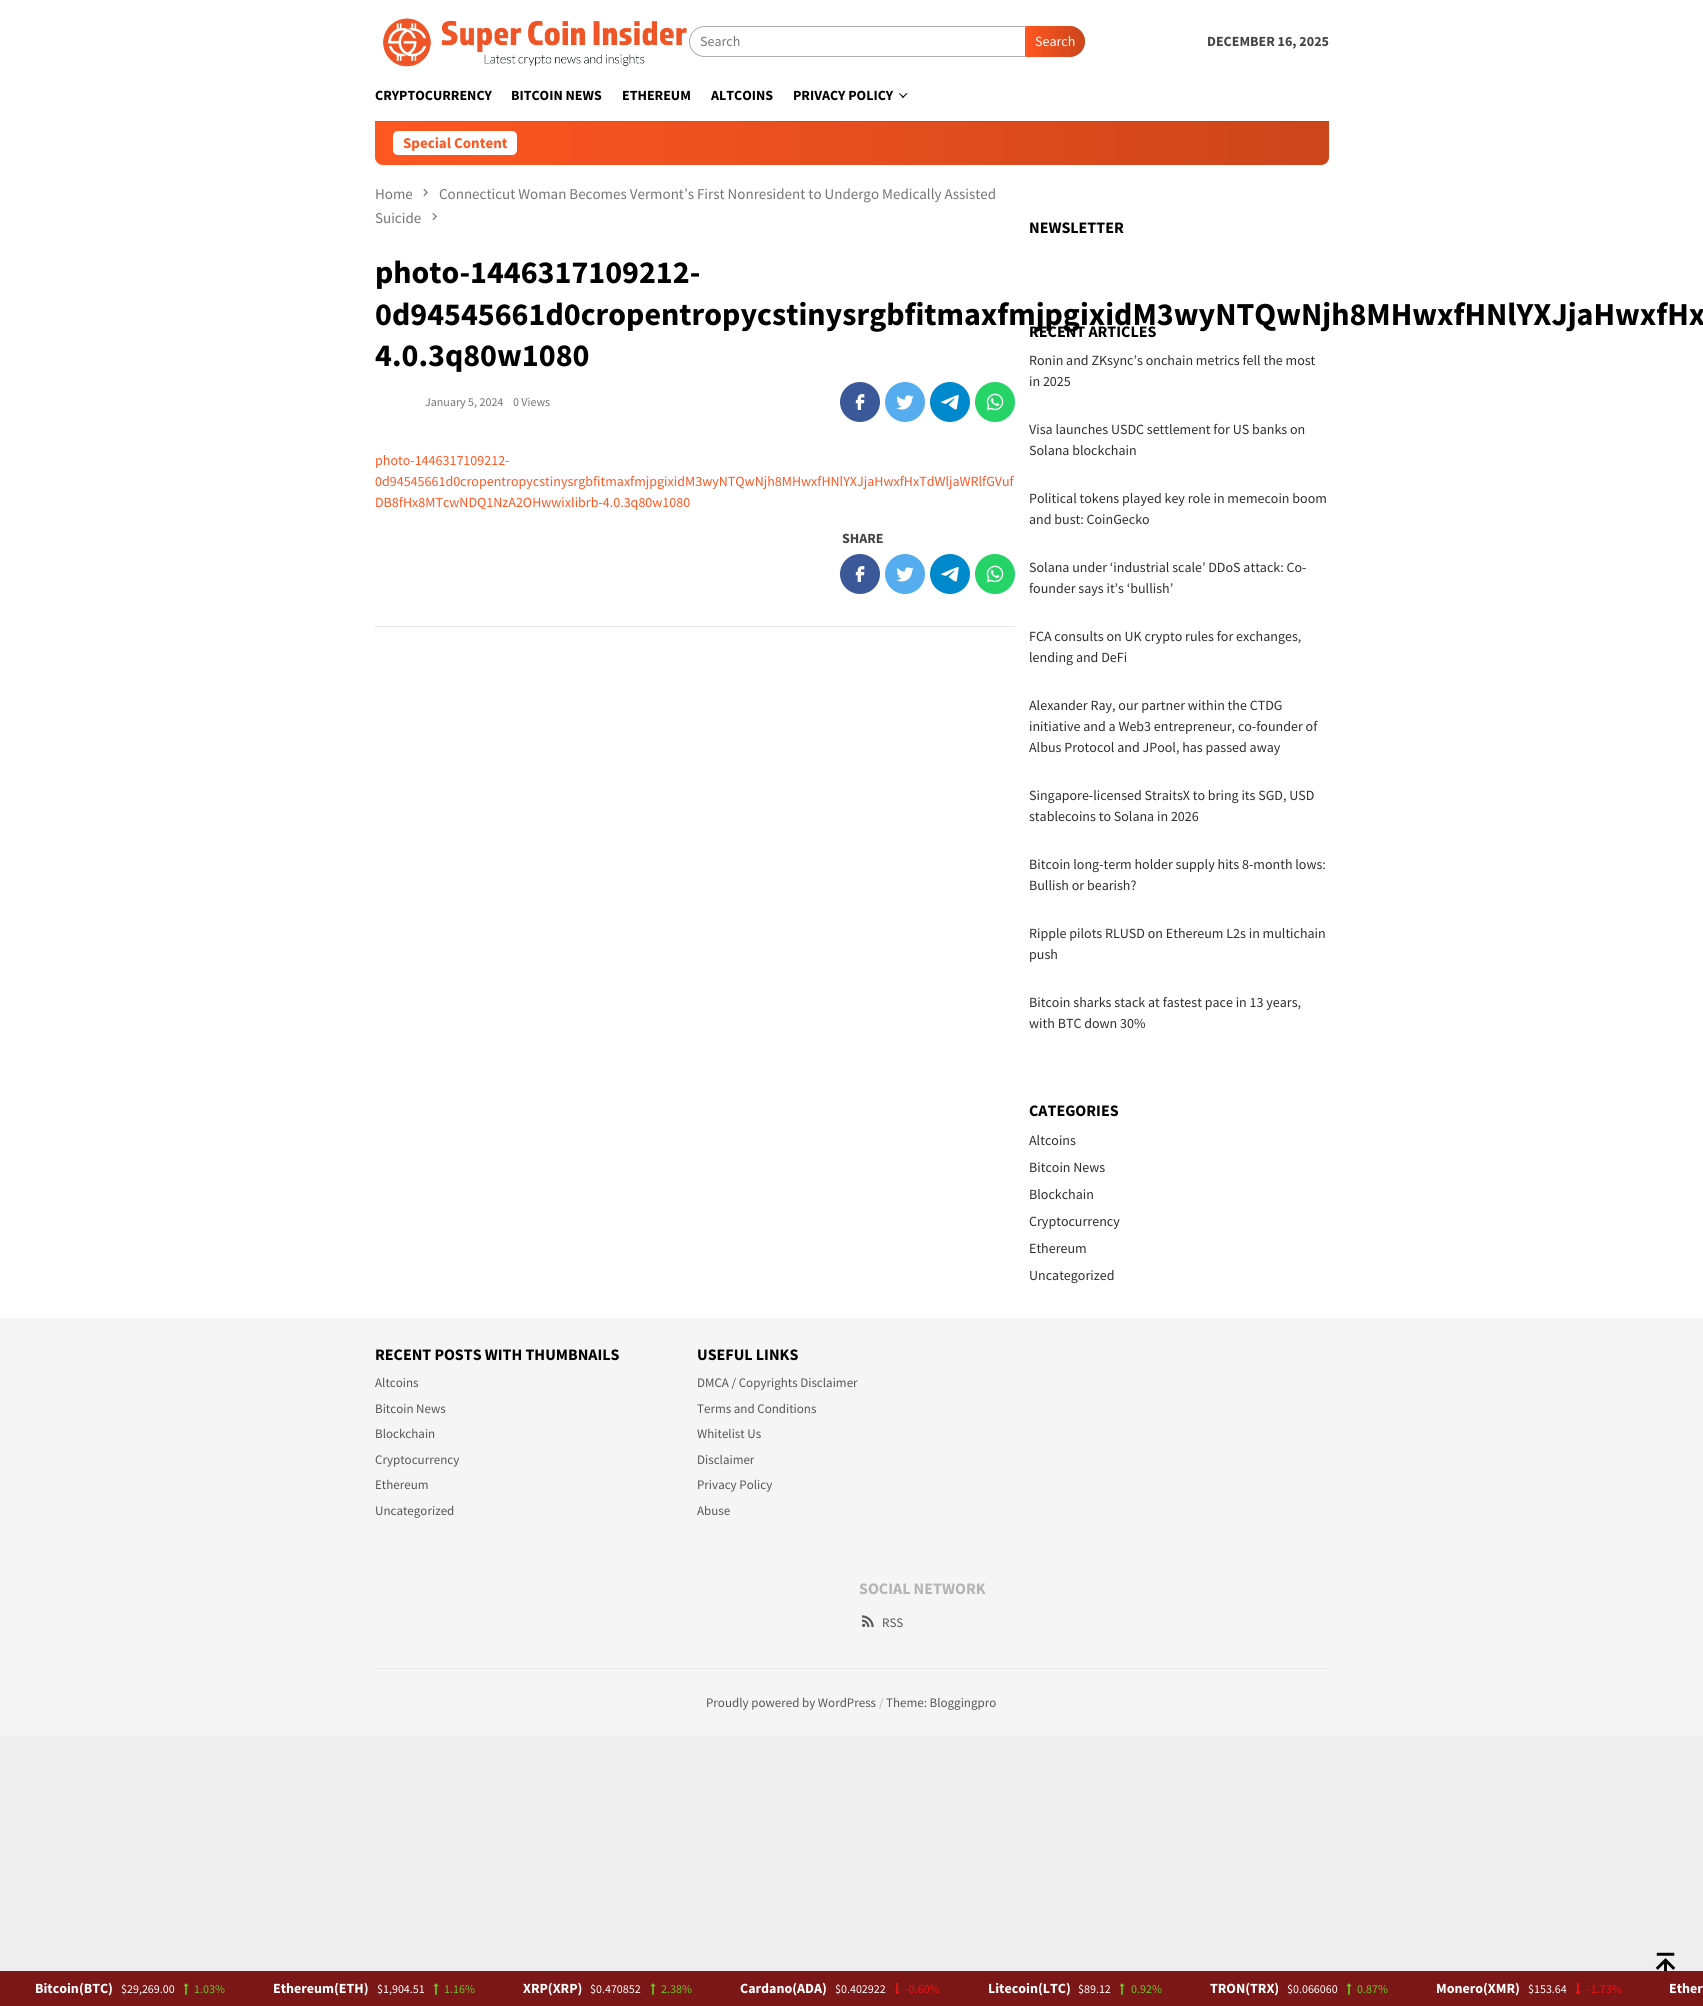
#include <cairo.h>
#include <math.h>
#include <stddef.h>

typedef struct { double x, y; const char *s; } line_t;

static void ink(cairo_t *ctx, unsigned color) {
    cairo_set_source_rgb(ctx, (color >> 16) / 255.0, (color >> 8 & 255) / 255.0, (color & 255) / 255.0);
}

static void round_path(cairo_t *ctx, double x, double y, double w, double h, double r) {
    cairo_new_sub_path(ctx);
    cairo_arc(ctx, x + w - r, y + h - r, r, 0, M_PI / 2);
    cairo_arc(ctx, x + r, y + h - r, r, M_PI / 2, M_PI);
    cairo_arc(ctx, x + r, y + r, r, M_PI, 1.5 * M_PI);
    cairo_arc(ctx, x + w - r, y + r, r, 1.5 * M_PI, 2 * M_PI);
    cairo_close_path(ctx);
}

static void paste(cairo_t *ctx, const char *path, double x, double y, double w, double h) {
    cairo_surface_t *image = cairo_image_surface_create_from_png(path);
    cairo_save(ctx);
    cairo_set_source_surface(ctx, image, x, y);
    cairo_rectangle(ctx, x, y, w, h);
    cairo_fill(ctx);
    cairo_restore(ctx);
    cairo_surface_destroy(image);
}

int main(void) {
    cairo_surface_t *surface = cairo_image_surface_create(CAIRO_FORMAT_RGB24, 1703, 2006);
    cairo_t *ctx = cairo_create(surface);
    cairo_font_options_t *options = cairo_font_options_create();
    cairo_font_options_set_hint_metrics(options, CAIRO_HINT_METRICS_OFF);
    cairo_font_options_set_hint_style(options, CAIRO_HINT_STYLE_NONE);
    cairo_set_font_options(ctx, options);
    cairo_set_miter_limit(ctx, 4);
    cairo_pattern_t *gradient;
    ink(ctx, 0xEEEEEE);
    cairo_paint(ctx);
    ink(ctx, 0xFFFFFF);
    cairo_rectangle(ctx, 0, 0, 1703, 70);
    cairo_fill(ctx);
    paste(ctx, "media/1.png", 383, 18, 304, 49);
    round_path(ctx, 689.5, 26.5, 395, 30, 15);
    ink(ctx, 0xADADAD);
    cairo_set_line_width(ctx, 1);
    cairo_stroke(ctx);
    cairo_select_font_face(ctx, "Source Sans Pro", CAIRO_FONT_SLANT_NORMAL, CAIRO_FONT_WEIGHT_NORMAL);
    cairo_set_font_size(ctx, 14);
    ink(ctx, 0x757575);
    cairo_move_to(ctx, 700, 46);
    cairo_show_text(ctx, "Search");
    ink(ctx, 0xFF5722);
    cairo_new_path(ctx);
    cairo_move_to(ctx, 1027, 26);
    cairo_line_to(ctx, 1069.5, 26);
    cairo_curve_to(ctx, 1078, 26, 1085, 33, 1085, 41.5);
    cairo_curve_to(ctx, 1085, 50, 1078, 57, 1069.5, 57);
    cairo_line_to(ctx, 1027, 57);
    cairo_curve_to(ctx, 1026, 57, 1025, 56, 1025, 55);
    cairo_line_to(ctx, 1025, 28);
    cairo_curve_to(ctx, 1025, 27, 1026, 26, 1027, 26);
    cairo_close_path(ctx);
    cairo_fill(ctx);
    gradient = cairo_pattern_create_linear(1025, 42, 1085, 42);
    cairo_pattern_add_color_stop_rgba(gradient, 0, 0, 0, 0, 0);
    cairo_pattern_add_color_stop_rgba(gradient, 1, 0, 0, 0, 0.2);
    cairo_set_source(ctx, gradient);
    cairo_pattern_destroy(gradient);
    cairo_new_path(ctx);
    cairo_move_to(ctx, 1027, 26);
    cairo_line_to(ctx, 1069.5, 26);
    cairo_curve_to(ctx, 1078, 26, 1085, 33, 1085, 41.5);
    cairo_curve_to(ctx, 1085, 50, 1078, 57, 1069.5, 57);
    cairo_line_to(ctx, 1027, 57);
    cairo_curve_to(ctx, 1026, 57, 1025, 56, 1025, 55);
    cairo_line_to(ctx, 1025, 28);
    cairo_curve_to(ctx, 1025, 27, 1026, 26, 1027, 26);
    cairo_close_path(ctx);
    cairo_fill(ctx);
    ink(ctx, 0xFFFFFF);
    cairo_move_to(ctx, 1035, 46);
    cairo_show_text(ctx, "Search");
    cairo_select_font_face(ctx, "Source Sans Pro", CAIRO_FONT_SLANT_NORMAL, CAIRO_FONT_WEIGHT_BOLD);
    ink(ctx, 0x444444);
    cairo_move_to(ctx, 1207, 46);
    cairo_show_text(ctx, "DECEMBER 16, 2025");
    ink(ctx, 0xFFFFFF);
    cairo_rectangle(ctx, 0, 70, 1703, 1248);
    cairo_fill(ctx);
    ink(ctx, 0xFF5722);
    cairo_new_path(ctx);
    cairo_move_to(ctx, 375, 121);
    cairo_line_to(ctx, 1329, 121);
    cairo_line_to(ctx, 1329, 157);
    cairo_curve_to(ctx, 1329, 161.5, 1325.5, 165, 1321, 165);
    cairo_line_to(ctx, 383, 165);
    cairo_curve_to(ctx, 378.5, 165, 375, 161.5, 375, 157);
    cairo_close_path(ctx);
    cairo_fill(ctx);
    gradient = cairo_pattern_create_linear(375, 143, 1329, 143);
    cairo_pattern_add_color_stop_rgba(gradient, 0, 0, 0, 0, 0);
    cairo_pattern_add_color_stop_rgba(gradient, 1, 0, 0, 0, 0.2);
    cairo_set_source(ctx, gradient);
    cairo_pattern_destroy(gradient);
    cairo_new_path(ctx);
    cairo_move_to(ctx, 375, 121);
    cairo_line_to(ctx, 1329, 121);
    cairo_line_to(ctx, 1329, 157);
    cairo_curve_to(ctx, 1329, 161.5, 1325.5, 165, 1321, 165);
    cairo_line_to(ctx, 383, 165);
    cairo_curve_to(ctx, 378.5, 165, 375, 161.5, 375, 157);
    cairo_close_path(ctx);
    cairo_fill(ctx);
    cairo_set_source_rgba(ctx, 0, 0, 0, 0.1);
    cairo_rectangle(ctx, 375, 121, 954, 1);
    cairo_fill(ctx);
    ink(ctx, 0x000000);
    {
        static const line_t items[] = {
            {375, 100, "CRYPTOCURRENCY"},
            {511, 100, "BITCOIN NEWS"},
            {622, 100, "ETHEREUM"},
            {711, 100, "ALTCOINS"},
            {793, 100, "PRIVACY POLICY"},
        };
        for (size_t i = 0; i < sizeof items / sizeof *items; i++) {
            cairo_move_to(ctx, items[i].x, items[i].y);
            cairo_show_text(ctx, items[i].s);
        }
    }
    cairo_new_path(ctx);
    cairo_move_to(ctx, 906.5, 93);
    cairo_line_to(ctx, 907.5, 93.5);
    cairo_line_to(ctx, 903, 98);
    cairo_line_to(ctx, 902.5, 97);
    cairo_close_path(ctx);
    cairo_fill(ctx);
    cairo_new_path(ctx);
    cairo_move_to(ctx, 899.5, 93);
    cairo_line_to(ctx, 904, 97);
    cairo_line_to(ctx, 903, 98);
    cairo_line_to(ctx, 899, 93.5);
    cairo_close_path(ctx);
    cairo_fill(ctx);
    ink(ctx, 0xFFFFFF);
    round_path(ctx, 393, 131, 124, 24, 5);
    cairo_fill(ctx);
    cairo_set_font_size(ctx, 15);
    ink(ctx, 0xFF5722);
    cairo_move_to(ctx, 403, 148);
    cairo_show_text(ctx, "Special Content");
    cairo_select_font_face(ctx, "Source Sans Pro", CAIRO_FONT_SLANT_NORMAL, CAIRO_FONT_WEIGHT_NORMAL);
    ink(ctx, 0x757575);
    cairo_move_to(ctx, 375, 199);
    cairo_show_text(ctx, "Home");
    paste(ctx, "media/2.png", 423, 188, 5, 9);
    cairo_move_to(ctx, 439, 199);
    cairo_show_text(ctx, "Connecticut Woman Becomes Vermont’s First Nonresident to Undergo Medically Assisted");
    cairo_move_to(ctx, 375, 223);
    cairo_show_text(ctx, "Suicide");
    paste(ctx, "media/2.png", 432, 212, 5, 9);
    ink(ctx, 0xE5E5E5);
    cairo_rectangle(ctx, 375, 626, 640, 1);
    cairo_fill(ctx);
    cairo_select_font_face(ctx, "Source Sans Pro", CAIRO_FONT_SLANT_NORMAL, CAIRO_FONT_WEIGHT_BOLD);
    cairo_set_font_size(ctx, 32);
    ink(ctx, 0x000000);
    {
        static const line_t items[] = {
            {375, 283, "photo-1446317109212-"},
            {375, 325, "0d94545661d0cropentropycstinysrgbfitmaxfmjpgixidM3wyNTQwNjh8MHwxfHNlYXJjaHwxfHx"},
            {375, 366, "4.0.3q80w1080"},
        };
        for (size_t i = 0; i < sizeof items / sizeof *items; i++) {
            cairo_move_to(ctx, items[i].x, items[i].y);
            cairo_show_text(ctx, items[i].s);
        }
    }
    cairo_select_font_face(ctx, "Source Sans Pro", CAIRO_FONT_SLANT_NORMAL, CAIRO_FONT_WEIGHT_NORMAL);
    cairo_set_font_size(ctx, 12);
    ink(ctx, 0x757575);
    cairo_move_to(ctx, 425, 406);
    cairo_show_text(ctx, "January 5, 2024");
    cairo_move_to(ctx, 513, 406);
    cairo_show_text(ctx, "0 Views");
    ink(ctx, 0x3B5998);
    cairo_new_path(ctx);
    cairo_arc(ctx, 860, 402, 20, 0, 2 * M_PI);
    cairo_fill(ctx);
    paste(ctx, "media/3.png", 855, 394, 10, 16);
    ink(ctx, 0x55ACEE);
    cairo_arc(ctx, 905, 402, 20, 0, 2 * M_PI);
    cairo_fill(ctx);
    paste(ctx, "media/4.png", 896, 395, 18, 15);
    ink(ctx, 0x0088CC);
    cairo_arc(ctx, 950, 402, 20, 0, 2 * M_PI);
    cairo_fill(ctx);
    paste(ctx, "media/5.png", 941, 395, 18, 15);
    ink(ctx, 0x25D366);
    cairo_arc(ctx, 995, 402, 20, 0, 2 * M_PI);
    cairo_fill(ctx);
    paste(ctx, "media/6.png", 986, 393, 18, 18);
    cairo_set_font_size(ctx, 14);
    ink(ctx, 0xFF5722);
    {
        static const line_t items[] = {
            {375, 465, "photo-1446317109212-"},
            {375, 486, "0d94545661d0cropentropycstinysrgbfitmaxfmjpgixidM3wyNTQwNjh8MHwxfHNlYXJjaHwxfHxTdWljaWRlfGVuf"},
            {375, 507, "DB8fHx8MTcwNDQ1NzA2OHwwixlibrb-4.0.3q80w1080"},
        };
        for (size_t i = 0; i < sizeof items / sizeof *items; i++) {
            cairo_move_to(ctx, items[i].x, items[i].y);
            cairo_show_text(ctx, items[i].s);
        }
    }
    cairo_select_font_face(ctx, "Source Sans Pro", CAIRO_FONT_SLANT_NORMAL, CAIRO_FONT_WEIGHT_BOLD);
    ink(ctx, 0x444444);
    cairo_move_to(ctx, 842, 543);
    cairo_show_text(ctx, "SHARE");
    ink(ctx, 0x3B5998);
    cairo_new_path(ctx);
    cairo_arc(ctx, 860, 574, 20, 0, 2 * M_PI);
    cairo_fill(ctx);
    paste(ctx, "media/3.png", 855, 566, 10, 16);
    ink(ctx, 0x55ACEE);
    cairo_arc(ctx, 905, 574, 20, 0, 2 * M_PI);
    cairo_fill(ctx);
    paste(ctx, "media/4.png", 896, 567, 18, 15);
    ink(ctx, 0x0088CC);
    cairo_arc(ctx, 950, 574, 20, 0, 2 * M_PI);
    cairo_fill(ctx);
    paste(ctx, "media/5.png", 941, 567, 18, 15);
    ink(ctx, 0x25D366);
    cairo_arc(ctx, 995, 574, 20, 0, 2 * M_PI);
    cairo_fill(ctx);
    paste(ctx, "media/6.png", 986, 565, 18, 18);
    cairo_set_font_size(ctx, 16);
    ink(ctx, 0x000000);
    cairo_move_to(ctx, 1029, 233);
    cairo_show_text(ctx, "NEWSLETTER");
    cairo_move_to(ctx, 1029, 337);
    cairo_show_text(ctx, "RECENT ARTICLES");
    cairo_select_font_face(ctx, "Source Sans Pro", CAIRO_FONT_SLANT_NORMAL, CAIRO_FONT_WEIGHT_NORMAL);
    cairo_set_font_size(ctx, 14);
    ink(ctx, 0x2E2E2E);
    {
        static const line_t items[] = {
            {1029, 365, "Ronin and ZKsync’s onchain metrics fell the most"},
            {1029, 386, "in 2025"},
            {1029, 434, "Visa launches USDC settlement for US banks on"},
            {1029, 455, "Solana blockchain"},
            {1029, 503, "Political tokens played key role in memecoin boom"},
            {1029, 524, "and bust: CoinGecko"},
            {1029, 572, "Solana under ‘industrial scale’ DDoS attack: Co-"},
            {1029, 593, "founder says it’s ‘bullish’"},
            {1029, 641, "FCA consults on UK crypto rules for exchanges,"},
            {1029, 662, "lending and DeFi"},
            {1029, 710, "Alexander Ray, our partner within the CTDG"},
            {1029, 731, "initiative and a Web3 entrepreneur, co-founder of"},
            {1029, 752, "Albus Protocol and JPool, has passed away"},
            {1029, 800, "Singapore-licensed StraitsX to bring its SGD, USD"},
            {1029, 821, "stablecoins to Solana in 2026"},
            {1029, 869, "Bitcoin long-term holder supply hits 8-month lows:"},
            {1029, 890, "Bullish or bearish?"},
            {1029, 938, "Ripple pilots RLUSD on Ethereum L2s in multichain"},
            {1029, 959, "push"},
            {1029, 1007, "Bitcoin sharks stack at fastest pace in 13 years,"},
            {1029, 1028, "with BTC down 30%"},
        };
        for (size_t i = 0; i < sizeof items / sizeof *items; i++) {
            cairo_move_to(ctx, items[i].x, items[i].y);
            cairo_show_text(ctx, items[i].s);
        }
    }
    cairo_select_font_face(ctx, "Source Sans Pro", CAIRO_FONT_SLANT_NORMAL, CAIRO_FONT_WEIGHT_BOLD);
    cairo_set_font_size(ctx, 16);
    ink(ctx, 0x000000);
    cairo_move_to(ctx, 1029, 1116);
    cairo_show_text(ctx, "CATEGORIES");
    cairo_select_font_face(ctx, "Source Sans Pro", CAIRO_FONT_SLANT_NORMAL, CAIRO_FONT_WEIGHT_NORMAL);
    cairo_set_font_size(ctx, 14);
    ink(ctx, 0x2E2E2E);
    {
        static const line_t items[] = {
            {1029, 1145, "Altcoins"},
            {1029, 1172, "Bitcoin News"},
            {1029, 1199, "Blockchain"},
            {1029, 1226, "Cryptocurrency"},
            {1029, 1253, "Ethereum"},
            {1029, 1280, "Uncategorized"},
        };
        for (size_t i = 0; i < sizeof items / sizeof *items; i++) {
            cairo_move_to(ctx, items[i].x, items[i].y);
            cairo_show_text(ctx, items[i].s);
        }
    }
    ink(ctx, 0xF5F5F5);
    cairo_rectangle(ctx, 0, 1318, 1703, 418);
    cairo_fill(ctx);
    cairo_select_font_face(ctx, "Source Sans Pro", CAIRO_FONT_SLANT_NORMAL, CAIRO_FONT_WEIGHT_BOLD);
    cairo_set_font_size(ctx, 16);
    ink(ctx, 0x000000);
    cairo_move_to(ctx, 375, 1360);
    cairo_show_text(ctx, "RECENT POSTS WITH THUMBNAILS");
    cairo_select_font_face(ctx, "Source Sans Pro", CAIRO_FONT_SLANT_NORMAL, CAIRO_FONT_WEIGHT_NORMAL);
    cairo_set_font_size(ctx, 13);
    ink(ctx, 0x565656);
    {
        static const line_t items[] = {
            {375, 1387, "Altcoins"},
            {375, 1413, "Bitcoin News"},
            {375, 1438, "Blockchain"},
            {375, 1464, "Cryptocurrency"},
            {375, 1489, "Ethereum"},
            {375, 1515, "Uncategorized"},
        };
        for (size_t i = 0; i < sizeof items / sizeof *items; i++) {
            cairo_move_to(ctx, items[i].x, items[i].y);
            cairo_show_text(ctx, items[i].s);
        }
    }
    cairo_select_font_face(ctx, "Source Sans Pro", CAIRO_FONT_SLANT_NORMAL, CAIRO_FONT_WEIGHT_BOLD);
    cairo_set_font_size(ctx, 16);
    ink(ctx, 0x000000);
    cairo_move_to(ctx, 697, 1360);
    cairo_show_text(ctx, "USEFUL LINKS");
    cairo_select_font_face(ctx, "Source Sans Pro", CAIRO_FONT_SLANT_NORMAL, CAIRO_FONT_WEIGHT_NORMAL);
    cairo_set_font_size(ctx, 13);
    ink(ctx, 0x565656);
    {
        static const line_t items[] = {
            {697, 1387, "DMCA / Copyrights Disclaimer"},
            {697, 1413, "Terms and Conditions"},
            {697, 1438, "Whitelist Us"},
            {697, 1464, "Disclaimer"},
            {697, 1489, "Privacy Policy"},
            {697, 1515, "Abuse"},
        };
        for (size_t i = 0; i < sizeof items / sizeof *items; i++) {
            cairo_move_to(ctx, items[i].x, items[i].y);
            cairo_show_text(ctx, items[i].s);
        }
    }
    cairo_select_font_face(ctx, "Source Sans Pro", CAIRO_FONT_SLANT_NORMAL, CAIRO_FONT_WEIGHT_BOLD);
    cairo_set_font_size(ctx, 16);
    ink(ctx, 0xB4B4B4);
    cairo_move_to(ctx, 859, 1594);
    cairo_show_text(ctx, "SOCIAL NETWORK");
    paste(ctx, "media/7.png", 862, 1615, 12, 12);
    cairo_select_font_face(ctx, "Source Sans Pro", CAIRO_FONT_SLANT_NORMAL, CAIRO_FONT_WEIGHT_NORMAL);
    cairo_set_font_size(ctx, 13);
    ink(ctx, 0x565656);
    cairo_move_to(ctx, 882, 1627);
    cairo_show_text(ctx, "RSS");
    ink(ctx, 0xE9E9E9);
    cairo_rectangle(ctx, 375, 1668, 954, 1);
    cairo_fill(ctx);
    ink(ctx, 0x565656);
    cairo_move_to(ctx, 706, 1707);
    cairo_show_text(ctx, "Proudly powered by WordPress");
    ink(ctx, 0xB4B4B4);
    cairo_move_to(ctx, 879, 1707);
    cairo_show_text(ctx, "/");
    ink(ctx, 0x565656);
    cairo_move_to(ctx, 886, 1707);
    cairo_show_text(ctx, "Theme: Bloggingpro");
    paste(ctx, "media/8.png", 1655, 1952, 21, 19);
    ink(ctx, 0x7C1717);
    cairo_rectangle(ctx, 0, 1971, 1703, 35);
    cairo_fill(ctx);
    cairo_select_font_face(ctx, "Source Sans Pro", CAIRO_FONT_SLANT_NORMAL, CAIRO_FONT_WEIGHT_BOLD);
    cairo_set_font_size(ctx, 14);
    ink(ctx, 0xFFFFFF);
    cairo_move_to(ctx, 35, 1993);
    cairo_show_text(ctx, "Bitcoin(BTC)");
    cairo_select_font_face(ctx, "Source Sans Pro", CAIRO_FONT_SLANT_NORMAL, CAIRO_FONT_WEIGHT_NORMAL);
    cairo_set_font_size(ctx, 12);
    cairo_move_to(ctx, 121, 1993);
    cairo_show_text(ctx, "$29,269.00");
    paste(ctx, "media/9.png", 183, 1983, 6, 12);
    ink(ctx, 0x67C624);
    cairo_move_to(ctx, 194, 1993);
    cairo_show_text(ctx, "1.03%");
    cairo_select_font_face(ctx, "Source Sans Pro", CAIRO_FONT_SLANT_NORMAL, CAIRO_FONT_WEIGHT_BOLD);
    cairo_set_font_size(ctx, 14);
    ink(ctx, 0xFFFFFF);
    cairo_move_to(ctx, 273, 1993);
    cairo_show_text(ctx, "Ethereum(ETH)");
    cairo_select_font_face(ctx, "Source Sans Pro", CAIRO_FONT_SLANT_NORMAL, CAIRO_FONT_WEIGHT_NORMAL);
    cairo_set_font_size(ctx, 12);
    cairo_move_to(ctx, 377, 1993);
    cairo_show_text(ctx, "$1,904.51");
    paste(ctx, "media/9.png", 433, 1983, 6, 12);
    ink(ctx, 0x67C624);
    cairo_move_to(ctx, 444, 1993);
    cairo_show_text(ctx, "1.16%");
    cairo_select_font_face(ctx, "Source Sans Pro", CAIRO_FONT_SLANT_NORMAL, CAIRO_FONT_WEIGHT_BOLD);
    cairo_set_font_size(ctx, 14);
    ink(ctx, 0xFFFFFF);
    cairo_move_to(ctx, 523, 1993);
    cairo_show_text(ctx, "XRP(XRP)");
    cairo_select_font_face(ctx, "Source Sans Pro", CAIRO_FONT_SLANT_NORMAL, CAIRO_FONT_WEIGHT_NORMAL);
    cairo_set_font_size(ctx, 12);
    cairo_move_to(ctx, 590, 1993);
    cairo_show_text(ctx, "$0.470852");
    paste(ctx, "media/9.png", 650, 1983, 6, 12);
    ink(ctx, 0x67C624);
    cairo_move_to(ctx, 661, 1993);
    cairo_show_text(ctx, "2.38%");
    cairo_select_font_face(ctx, "Source Sans Pro", CAIRO_FONT_SLANT_NORMAL, CAIRO_FONT_WEIGHT_BOLD);
    cairo_set_font_size(ctx, 14);
    ink(ctx, 0xFFFFFF);
    cairo_move_to(ctx, 740, 1993);
    cairo_show_text(ctx, "Cardano(ADA)");
    cairo_select_font_face(ctx, "Source Sans Pro", CAIRO_FONT_SLANT_NORMAL, CAIRO_FONT_WEIGHT_NORMAL);
    cairo_set_font_size(ctx, 12);
    cairo_move_to(ctx, 835, 1993);
    cairo_show_text(ctx, "$0.402922");
    paste(ctx, "media/10.png", 894, 1982, 6, 13);
    ink(ctx, 0xED1414);
    cairo_move_to(ctx, 905, 1993);
    cairo_show_text(ctx, "-0.60%");
    cairo_select_font_face(ctx, "Source Sans Pro", CAIRO_FONT_SLANT_NORMAL, CAIRO_FONT_WEIGHT_BOLD);
    cairo_set_font_size(ctx, 14);
    ink(ctx, 0xFFFFFF);
    cairo_move_to(ctx, 988, 1993);
    cairo_show_text(ctx, "Litecoin(LTC)");
    cairo_select_font_face(ctx, "Source Sans Pro", CAIRO_FONT_SLANT_NORMAL, CAIRO_FONT_WEIGHT_NORMAL);
    cairo_set_font_size(ctx, 12);
    cairo_move_to(ctx, 1078, 1993);
    cairo_show_text(ctx, "$89.12");
    paste(ctx, "media/9.png", 1119, 1983, 6, 12);
    ink(ctx, 0x67C624);
    cairo_move_to(ctx, 1131, 1993);
    cairo_show_text(ctx, "0.92%");
    cairo_select_font_face(ctx, "Source Sans Pro", CAIRO_FONT_SLANT_NORMAL, CAIRO_FONT_WEIGHT_BOLD);
    cairo_set_font_size(ctx, 14);
    ink(ctx, 0xFFFFFF);
    cairo_move_to(ctx, 1210, 1993);
    cairo_show_text(ctx, "TRON(TRX)");
    cairo_select_font_face(ctx, "Source Sans Pro", CAIRO_FONT_SLANT_NORMAL, CAIRO_FONT_WEIGHT_NORMAL);
    cairo_set_font_size(ctx, 12);
    cairo_move_to(ctx, 1287, 1993);
    cairo_show_text(ctx, "$0.066060");
    paste(ctx, "media/9.png", 1346, 1983, 6, 12);
    ink(ctx, 0x67C624);
    cairo_move_to(ctx, 1357, 1993);
    cairo_show_text(ctx, "0.87%");
    cairo_select_font_face(ctx, "Source Sans Pro", CAIRO_FONT_SLANT_NORMAL, CAIRO_FONT_WEIGHT_BOLD);
    cairo_set_font_size(ctx, 14);
    ink(ctx, 0xFFFFFF);
    cairo_move_to(ctx, 1436, 1993);
    cairo_show_text(ctx, "Monero(XMR)");
    cairo_select_font_face(ctx, "Source Sans Pro", CAIRO_FONT_SLANT_NORMAL, CAIRO_FONT_WEIGHT_NORMAL);
    cairo_set_font_size(ctx, 12);
    cairo_move_to(ctx, 1528, 1993);
    cairo_show_text(ctx, "$153.64");
    paste(ctx, "media/10.png", 1575, 1982, 6, 13);
    ink(ctx, 0xED1414);
    cairo_move_to(ctx, 1587, 1993);
    cairo_show_text(ctx, "-1.73%");
    cairo_select_font_face(ctx, "Source Sans Pro", CAIRO_FONT_SLANT_NORMAL, CAIRO_FONT_WEIGHT_BOLD);
    cairo_set_font_size(ctx, 14);
    ink(ctx, 0xFFFFFF);
    cairo_move_to(ctx, 1669, 1993);
    cairo_show_text(ctx, "Ether");
    cairo_surface_write_to_png(surface, "image.png");
    cairo_font_options_destroy(options);
    cairo_destroy(ctx);
    cairo_surface_destroy(surface);
    return 0;
}
